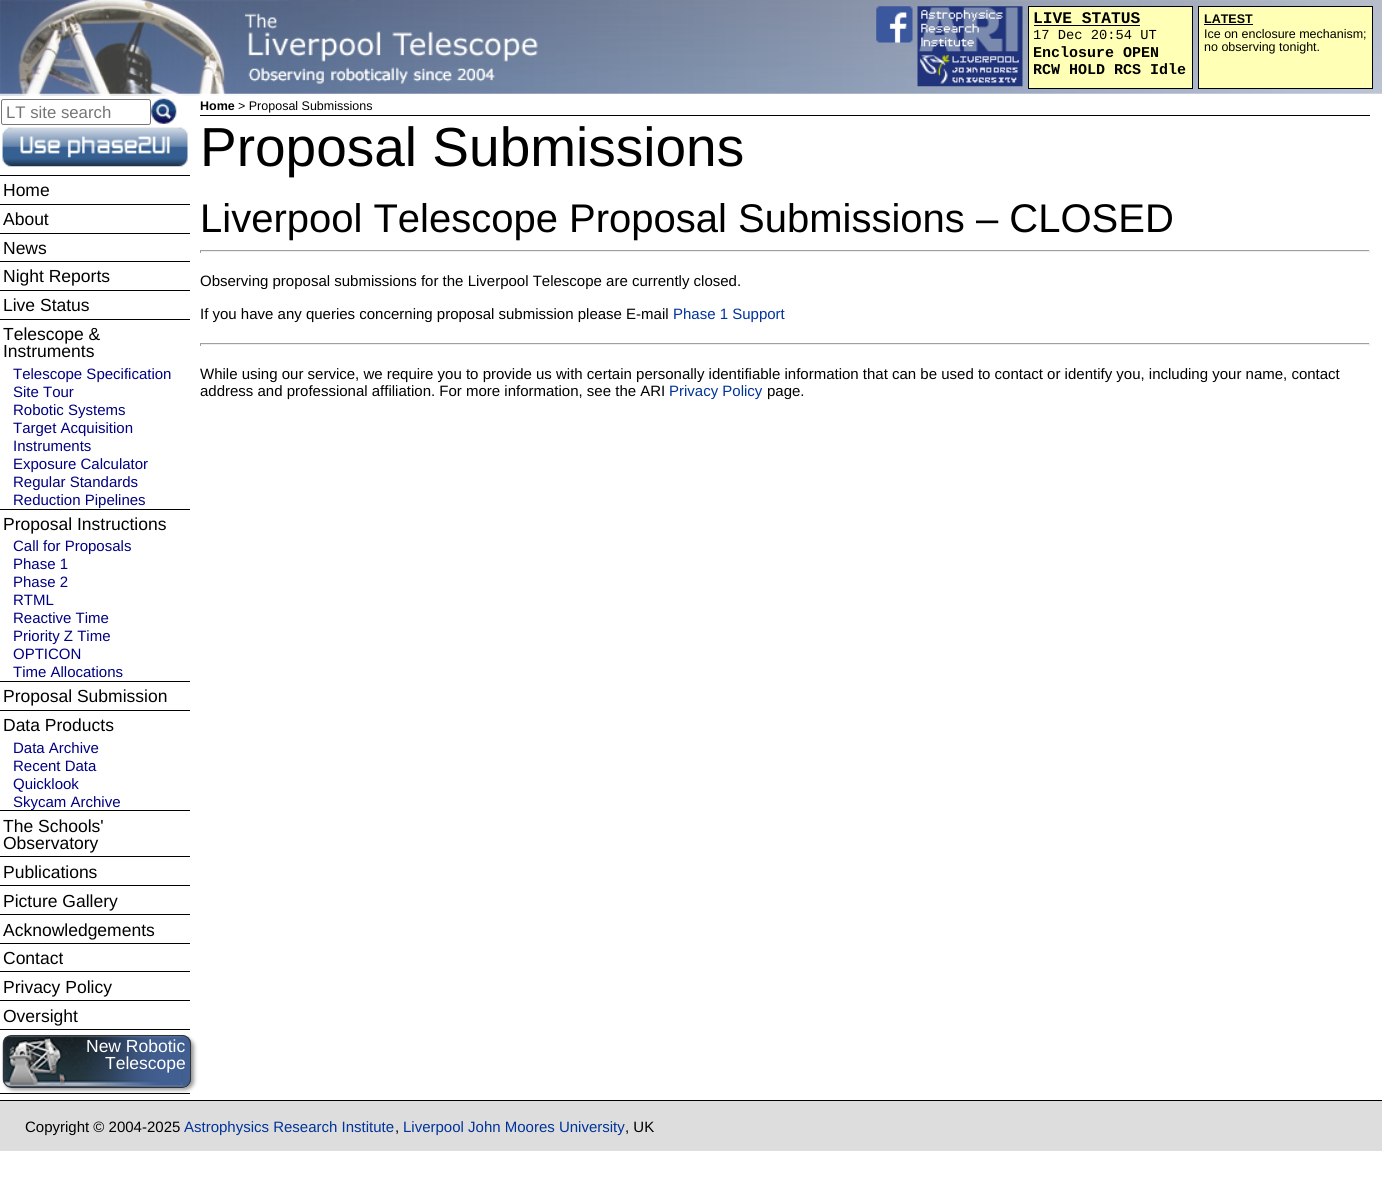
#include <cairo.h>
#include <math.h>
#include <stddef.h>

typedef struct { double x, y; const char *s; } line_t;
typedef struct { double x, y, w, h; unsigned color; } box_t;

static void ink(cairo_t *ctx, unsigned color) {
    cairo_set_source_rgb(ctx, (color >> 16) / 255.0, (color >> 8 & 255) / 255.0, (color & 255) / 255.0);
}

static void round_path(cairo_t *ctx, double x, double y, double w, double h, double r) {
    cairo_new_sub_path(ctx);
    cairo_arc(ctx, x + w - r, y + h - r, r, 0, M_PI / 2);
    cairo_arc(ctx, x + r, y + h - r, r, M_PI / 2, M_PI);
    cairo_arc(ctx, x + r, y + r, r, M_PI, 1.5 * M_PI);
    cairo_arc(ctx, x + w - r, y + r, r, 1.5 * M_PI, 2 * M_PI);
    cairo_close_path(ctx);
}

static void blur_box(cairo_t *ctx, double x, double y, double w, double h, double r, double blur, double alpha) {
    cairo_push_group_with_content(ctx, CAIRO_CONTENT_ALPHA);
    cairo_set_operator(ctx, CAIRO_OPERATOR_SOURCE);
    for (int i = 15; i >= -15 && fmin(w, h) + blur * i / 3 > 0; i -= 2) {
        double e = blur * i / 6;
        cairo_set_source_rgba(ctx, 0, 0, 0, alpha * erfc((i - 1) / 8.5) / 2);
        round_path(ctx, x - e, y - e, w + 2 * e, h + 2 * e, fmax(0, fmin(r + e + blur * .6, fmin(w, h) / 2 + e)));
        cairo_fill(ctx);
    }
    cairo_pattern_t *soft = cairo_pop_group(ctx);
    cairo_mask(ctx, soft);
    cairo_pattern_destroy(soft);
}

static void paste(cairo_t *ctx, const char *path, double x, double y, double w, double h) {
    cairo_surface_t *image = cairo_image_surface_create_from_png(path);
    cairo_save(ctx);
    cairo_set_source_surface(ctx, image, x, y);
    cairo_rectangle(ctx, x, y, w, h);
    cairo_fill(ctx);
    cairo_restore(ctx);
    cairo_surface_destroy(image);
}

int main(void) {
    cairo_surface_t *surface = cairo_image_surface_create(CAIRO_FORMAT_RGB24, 1382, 1189);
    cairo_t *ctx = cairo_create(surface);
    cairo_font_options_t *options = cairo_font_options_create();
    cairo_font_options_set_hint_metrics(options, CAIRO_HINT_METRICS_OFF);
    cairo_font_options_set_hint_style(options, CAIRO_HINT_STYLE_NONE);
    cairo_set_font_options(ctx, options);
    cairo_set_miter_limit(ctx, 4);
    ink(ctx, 0xFFFFFF);
    cairo_paint(ctx);
    paste(ctx, "media/1.png", 0, 0, 1382, 96);
    paste(ctx, "media/2.png", 876, 6, 37, 37);
    paste(ctx, "media/3.png", 917, 6, 106, 81);
    ink(ctx, 0xFFFFB5);
    cairo_rectangle(ctx, 1028.5, 6.5, 164, 82);
    cairo_fill_preserve(ctx);
    ink(ctx, 0x000000);
    cairo_set_line_width(ctx, 1);
    cairo_stroke(ctx);
    cairo_select_font_face(ctx, "Liberation Mono", CAIRO_FONT_SLANT_NORMAL, CAIRO_FONT_WEIGHT_BOLD);
    cairo_set_font_size(ctx, 16.25);
    cairo_move_to(ctx, 1033, 23);
    cairo_show_text(ctx, "LIVE STATUS");
    cairo_rectangle(ctx, 1034, 25, 106, 1);
    cairo_fill(ctx);
    cairo_select_font_face(ctx, "Liberation Mono", CAIRO_FONT_SLANT_NORMAL, CAIRO_FONT_WEIGHT_NORMAL);
    cairo_set_font_size(ctx, 13.75);
    cairo_move_to(ctx, 1033, 39);
    cairo_show_text(ctx, "17 Dec 20:54 UT");
    cairo_select_font_face(ctx, "Liberation Mono", CAIRO_FONT_SLANT_NORMAL, CAIRO_FONT_WEIGHT_BOLD);
    cairo_set_font_size(ctx, 15);
    cairo_move_to(ctx, 1033, 57);
    cairo_show_text(ctx, "Enclosure OPEN");
    cairo_move_to(ctx, 1033, 74);
    cairo_show_text(ctx, "RCW HOLD RCS Idle");
    ink(ctx, 0xFFFFB5);
    cairo_rectangle(ctx, 1198.5, 6.5, 174, 82);
    cairo_fill_preserve(ctx);
    ink(ctx, 0x000000);
    cairo_stroke(ctx);
    cairo_select_font_face(ctx, "Liberation Sans", CAIRO_FONT_SLANT_NORMAL, CAIRO_FONT_WEIGHT_BOLD);
    cairo_set_font_size(ctx, 12.5);
    cairo_move_to(ctx, 1204, 23);
    cairo_show_text(ctx, "LATEST");
    cairo_rectangle(ctx, 1204, 24, 49, 1);
    cairo_fill(ctx);
    cairo_select_font_face(ctx, "Liberation Sans", CAIRO_FONT_SLANT_NORMAL, CAIRO_FONT_WEIGHT_NORMAL);
    cairo_move_to(ctx, 1204, 38);
    cairo_show_text(ctx, "Ice on enclosure mechanism;");
    cairo_move_to(ctx, 1204, 51);
    cairo_show_text(ctx, "no observing tonight.");
    cairo_rectangle(ctx, 0, 1093, 190, 1);
    cairo_fill(ctx);
    round_path(ctx, 1.5, 99.5, 149, 25, 2);
    ink(ctx, 0x767676);
    cairo_stroke(ctx);
    cairo_set_font_size(ctx, 16.75);
    ink(ctx, 0x757575);
    cairo_move_to(ctx, 6, 118);
    cairo_show_text(ctx, "LT site search");
    paste(ctx, "media/4.png", 151, 98, 26, 26);
    paste(ctx, "media/5.png", 2, 127, 186, 40);
    ink(ctx, 0x000000);
    cairo_rectangle(ctx, 0, 175, 190, 1);
    cairo_fill(ctx);
    cairo_set_font_size(ctx, 17.5);
    cairo_move_to(ctx, 3, 196);
    cairo_show_text(ctx, "Home");
    cairo_rectangle(ctx, 0, 204, 190, 1);
    cairo_fill(ctx);
    cairo_move_to(ctx, 3, 225);
    cairo_show_text(ctx, "About");
    cairo_rectangle(ctx, 0, 233, 190, 1);
    cairo_fill(ctx);
    cairo_move_to(ctx, 3, 254);
    cairo_show_text(ctx, "News");
    cairo_rectangle(ctx, 0, 261, 190, 1);
    cairo_fill(ctx);
    cairo_move_to(ctx, 3, 282);
    cairo_show_text(ctx, "Night Reports");
    cairo_rectangle(ctx, 0, 290, 190, 1);
    cairo_fill(ctx);
    cairo_move_to(ctx, 3, 311);
    cairo_show_text(ctx, "Live Status");
    cairo_rectangle(ctx, 0, 319, 190, 1);
    cairo_fill(ctx);
    cairo_move_to(ctx, 3, 340);
    cairo_show_text(ctx, "Telescope &");
    cairo_move_to(ctx, 3, 357);
    cairo_show_text(ctx, "Instruments");
    cairo_set_font_size(ctx, 15);
    ink(ctx, 0x000080);
    {
        static const line_t items[] = {
            {13, 379, "Telescope Specification"},
            {13, 397, "Site Tour"},
            {13, 415, "Robotic Systems"},
            {13, 433, "Target Acquisition"},
            {13, 451, "Instruments"},
            {13, 469, "Exposure Calculator"},
            {13, 487, "Regular Standards"},
            {13, 505, "Reduction Pipelines"},
        };
        for (size_t i = 0; i < sizeof items / sizeof *items; i++) {
            cairo_move_to(ctx, items[i].x, items[i].y);
            cairo_show_text(ctx, items[i].s);
        }
    }
    ink(ctx, 0x000000);
    cairo_rectangle(ctx, 0, 509, 190, 1);
    cairo_fill(ctx);
    cairo_set_font_size(ctx, 17.5);
    cairo_move_to(ctx, 3, 530);
    cairo_show_text(ctx, "Proposal Instructions");
    cairo_set_font_size(ctx, 15);
    ink(ctx, 0x000080);
    {
        static const line_t items[] = {
            {13, 551, "Call for Proposals"},
            {13, 569, "Phase 1"},
            {13, 587, "Phase 2"},
            {13, 605, "RTML"},
            {13, 623, "Reactive Time"},
            {13, 641, "Priority Z Time"},
            {13, 659, "OPTICON"},
            {13, 677, "Time Allocations"},
        };
        for (size_t i = 0; i < sizeof items / sizeof *items; i++) {
            cairo_move_to(ctx, items[i].x, items[i].y);
            cairo_show_text(ctx, items[i].s);
        }
    }
    ink(ctx, 0x000000);
    cairo_rectangle(ctx, 0, 681, 190, 1);
    cairo_fill(ctx);
    cairo_set_font_size(ctx, 17.5);
    cairo_move_to(ctx, 3, 702);
    cairo_show_text(ctx, "Proposal Submission");
    cairo_rectangle(ctx, 0, 710, 190, 1);
    cairo_fill(ctx);
    cairo_move_to(ctx, 3, 731);
    cairo_show_text(ctx, "Data Products");
    cairo_set_font_size(ctx, 15);
    ink(ctx, 0x000080);
    {
        static const line_t items[] = {
            {13, 753, "Data Archive"},
            {13, 771, "Recent Data"},
            {13, 789, "Quicklook"},
        };
        for (size_t i = 0; i < sizeof items / sizeof *items; i++) {
            cairo_move_to(ctx, items[i].x, items[i].y);
            cairo_show_text(ctx, items[i].s);
        }
    }
    ink(ctx, 0x000000);
    cairo_rectangle(ctx, 0, 810, 190, 1);
    cairo_fill(ctx);
    ink(ctx, 0x000080);
    cairo_move_to(ctx, 13, 807);
    cairo_show_text(ctx, "Skycam Archive");
    cairo_set_font_size(ctx, 17.5);
    ink(ctx, 0x000000);
    cairo_move_to(ctx, 3, 832);
    cairo_show_text(ctx, "The Schools'");
    cairo_move_to(ctx, 3, 849);
    cairo_show_text(ctx, "Observatory");
    cairo_rectangle(ctx, 0, 856, 190, 1);
    cairo_fill(ctx);
    cairo_move_to(ctx, 3, 878);
    cairo_show_text(ctx, "Publications");
    cairo_rectangle(ctx, 0, 885, 190, 1);
    cairo_fill(ctx);
    cairo_move_to(ctx, 3, 907);
    cairo_show_text(ctx, "Picture Gallery");
    cairo_rectangle(ctx, 0, 914, 190, 1);
    cairo_fill(ctx);
    cairo_move_to(ctx, 3, 936);
    cairo_show_text(ctx, "Acknowledgements");
    cairo_rectangle(ctx, 0, 943, 190, 1);
    cairo_fill(ctx);
    cairo_move_to(ctx, 3, 964);
    cairo_show_text(ctx, "Contact");
    cairo_rectangle(ctx, 0, 971, 190, 1);
    cairo_fill(ctx);
    cairo_move_to(ctx, 3, 993);
    cairo_show_text(ctx, "Privacy Policy");
    cairo_rectangle(ctx, 0, 1000, 190, 1);
    cairo_fill(ctx);
    cairo_move_to(ctx, 3, 1022);
    cairo_show_text(ctx, "Oversight");
    cairo_rectangle(ctx, 0, 1029, 190, 1);
    cairo_fill(ctx);
    cairo_save(ctx);
    cairo_set_fill_rule(ctx, CAIRO_FILL_RULE_EVEN_ODD);
    cairo_new_path(ctx);
    cairo_move_to(ctx, 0, 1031);
    cairo_line_to(ctx, 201, 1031);
    cairo_line_to(ctx, 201, 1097);
    cairo_line_to(ctx, 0, 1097);
    cairo_close_path(ctx);
    cairo_move_to(ctx, 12, 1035);
    cairo_line_to(ctx, 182, 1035);
    cairo_curve_to(ctx, 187, 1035, 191, 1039, 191, 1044);
    cairo_line_to(ctx, 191, 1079);
    cairo_curve_to(ctx, 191, 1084, 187, 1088, 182, 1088);
    cairo_line_to(ctx, 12, 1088);
    cairo_curve_to(ctx, 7, 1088, 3, 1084, 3, 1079);
    cairo_line_to(ctx, 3, 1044);
    cairo_curve_to(ctx, 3, 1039, 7, 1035, 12, 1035);
    cairo_close_path(ctx);
    cairo_clip(ctx);
    ink(ctx, 0x999999);
    blur_box(ctx, 5, 1038, 189, 52, 9, 2, 1);
    cairo_restore(ctx);
    paste(ctx, "media/6.png", 2, 1035, 190, 53);
    round_path(ctx, 3.5, 1035.5, 187, 52, 8.5);
    ink(ctx, 0x333333);
    cairo_stroke(ctx);
    ink(ctx, 0xFFFFFF);
    cairo_move_to(ctx, 86, 1052);
    cairo_show_text(ctx, "New Robotic");
    cairo_move_to(ctx, 105, 1069);
    cairo_show_text(ctx, "Telescope");
    ink(ctx, 0x000000);
    cairo_rectangle(ctx, 200, 115, 1170, 1);
    cairo_fill(ctx);
    cairo_select_font_face(ctx, "Liberation Sans", CAIRO_FONT_SLANT_NORMAL, CAIRO_FONT_WEIGHT_BOLD);
    cairo_set_font_size(ctx, 12.5);
    cairo_move_to(ctx, 200, 110);
    cairo_show_text(ctx, "Home");
    cairo_select_font_face(ctx, "Liberation Sans", CAIRO_FONT_SLANT_NORMAL, CAIRO_FONT_WEIGHT_NORMAL);
    cairo_move_to(ctx, 238, 110);
    cairo_show_text(ctx, "> Proposal Submissions");
    cairo_set_font_size(ctx, 55);
    cairo_move_to(ctx, 200, 166);
    cairo_show_text(ctx, "Proposal Submissions");
    cairo_set_font_size(ctx, 40);
    cairo_move_to(ctx, 200, 232);
    cairo_show_text(ctx, "Liverpool Telescope Proposal Submissions – CLOSED");
    {
        static const box_t items[] = {
            {200, 250, 1170, 1, 0x9F9F9F},
            {1369, 250, 1, 3, 0xEEEEEE},
            {200, 251, 1170, 1, 0xEEEEEE},
            {200, 250, 1, 3, 0x9F9F9F},
        };
        for (size_t i = 0; i < sizeof items / sizeof *items; i++) {
            ink(ctx, items[i].color);
            cairo_rectangle(ctx, items[i].x, items[i].y, items[i].w, items[i].h);
            cairo_fill(ctx);
        }
    }
    cairo_set_font_size(ctx, 15);
    ink(ctx, 0x000000);
    cairo_move_to(ctx, 200, 286);
    cairo_show_text(ctx, "Observing proposal submissions for the Liverpool Telescope are currently closed.");
    cairo_move_to(ctx, 200, 319);
    cairo_show_text(ctx, "If you have any queries concerning proposal submission please E-mail");
    ink(ctx, 0x003399);
    cairo_move_to(ctx, 673, 319);
    cairo_show_text(ctx, "Phase 1 Support");
    {
        static const box_t items[] = {
            {200, 343, 1170, 1, 0x9F9F9F},
            {1369, 343, 1, 3, 0xEEEEEE},
            {200, 344, 1170, 1, 0xEEEEEE},
            {200, 343, 1, 3, 0x9F9F9F},
        };
        for (size_t i = 0; i < sizeof items / sizeof *items; i++) {
            ink(ctx, items[i].color);
            cairo_rectangle(ctx, items[i].x, items[i].y, items[i].w, items[i].h);
            cairo_fill(ctx);
        }
    }
    ink(ctx, 0x000000);
    cairo_move_to(ctx, 200, 379);
    cairo_show_text(ctx, "While using our service, we require you to provide us with certain personally identifiable information that can be used to contact or identify you, including your name, contact");
    cairo_move_to(ctx, 200, 396);
    cairo_show_text(ctx, "address and professional affiliation. For more information, see the ARI");
    ink(ctx, 0x003399);
    cairo_move_to(ctx, 669, 396);
    cairo_show_text(ctx, "Privacy Policy");
    ink(ctx, 0x000000);
    cairo_move_to(ctx, 767, 396);
    cairo_show_text(ctx, "page.");
    ink(ctx, 0xDDDDDD);
    cairo_rectangle(ctx, 0, 1101, 1382, 50);
    cairo_fill(ctx);
    ink(ctx, 0x000000);
    cairo_rectangle(ctx, 0, 1100, 1382, 1);
    cairo_fill(ctx);
    cairo_move_to(ctx, 25, 1132);
    cairo_show_text(ctx, "Copyright © 2004-2025");
    ink(ctx, 0x003399);
    cairo_move_to(ctx, 184, 1132);
    cairo_show_text(ctx, "Astrophysics Research Institute");
    ink(ctx, 0x000000);
    cairo_move_to(ctx, 395, 1132);
    cairo_show_text(ctx, ",");
    ink(ctx, 0x003399);
    cairo_move_to(ctx, 403, 1132);
    cairo_show_text(ctx, "Liverpool John Moores University");
    ink(ctx, 0x000000);
    cairo_move_to(ctx, 625, 1132);
    cairo_show_text(ctx, ", UK");
    cairo_surface_write_to_png(surface, "image.png");
    cairo_font_options_destroy(options);
    cairo_destroy(ctx);
    cairo_surface_destroy(surface);
    return 0;
}
